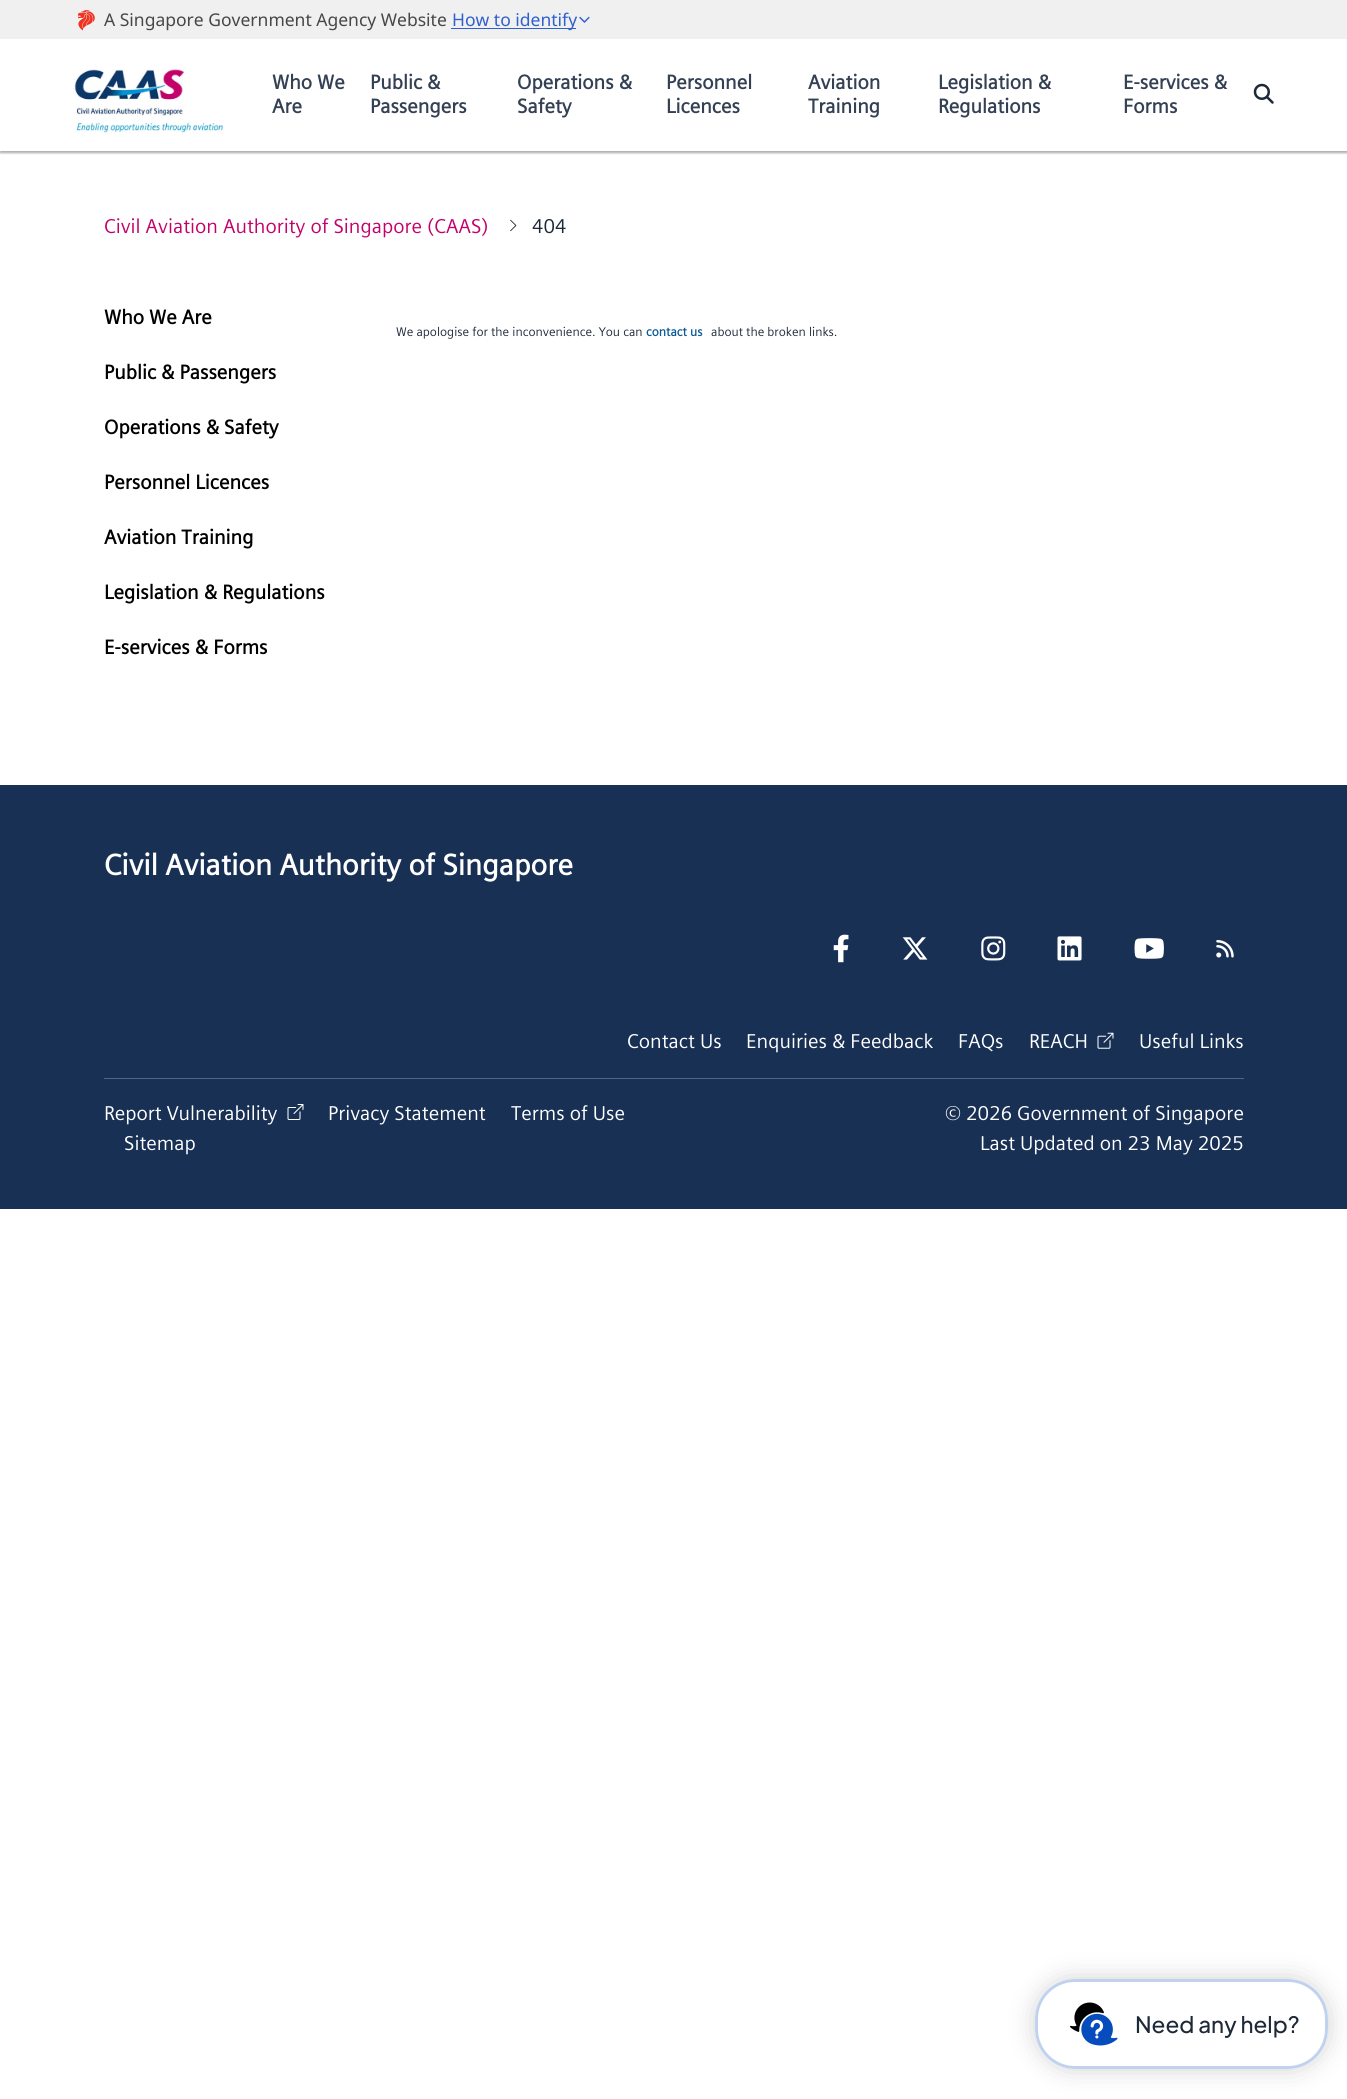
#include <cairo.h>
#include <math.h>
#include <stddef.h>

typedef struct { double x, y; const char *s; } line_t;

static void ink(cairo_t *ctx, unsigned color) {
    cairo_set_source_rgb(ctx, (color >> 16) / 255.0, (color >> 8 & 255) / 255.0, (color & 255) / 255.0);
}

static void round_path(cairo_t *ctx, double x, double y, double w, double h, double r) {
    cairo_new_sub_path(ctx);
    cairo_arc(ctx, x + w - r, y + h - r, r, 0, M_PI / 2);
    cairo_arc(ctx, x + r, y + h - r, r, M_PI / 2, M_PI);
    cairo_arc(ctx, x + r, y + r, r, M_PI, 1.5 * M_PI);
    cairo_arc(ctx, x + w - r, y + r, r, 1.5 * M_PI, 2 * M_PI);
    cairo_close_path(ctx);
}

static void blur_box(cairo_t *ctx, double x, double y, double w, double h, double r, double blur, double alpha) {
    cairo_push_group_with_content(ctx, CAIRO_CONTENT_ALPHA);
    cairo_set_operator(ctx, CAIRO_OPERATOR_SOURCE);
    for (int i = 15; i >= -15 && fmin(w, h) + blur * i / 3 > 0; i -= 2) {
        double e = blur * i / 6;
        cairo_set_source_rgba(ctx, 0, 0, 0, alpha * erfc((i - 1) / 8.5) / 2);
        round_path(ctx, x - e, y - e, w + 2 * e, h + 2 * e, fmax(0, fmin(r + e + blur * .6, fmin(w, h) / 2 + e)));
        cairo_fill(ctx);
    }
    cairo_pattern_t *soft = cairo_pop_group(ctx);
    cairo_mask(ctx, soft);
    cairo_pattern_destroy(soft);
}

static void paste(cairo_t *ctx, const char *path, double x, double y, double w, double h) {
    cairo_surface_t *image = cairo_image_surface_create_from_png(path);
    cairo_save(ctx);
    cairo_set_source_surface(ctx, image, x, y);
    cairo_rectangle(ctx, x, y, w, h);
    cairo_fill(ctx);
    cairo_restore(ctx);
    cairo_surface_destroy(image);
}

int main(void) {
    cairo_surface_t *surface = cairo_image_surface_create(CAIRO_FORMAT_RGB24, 1347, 2099);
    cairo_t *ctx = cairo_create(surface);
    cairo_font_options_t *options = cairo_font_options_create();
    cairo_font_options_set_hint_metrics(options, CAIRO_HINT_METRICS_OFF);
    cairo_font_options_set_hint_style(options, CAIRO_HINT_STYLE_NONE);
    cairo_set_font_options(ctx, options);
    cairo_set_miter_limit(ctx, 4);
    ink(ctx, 0xFFFFFF);
    cairo_paint(ctx);
    cairo_save(ctx);
    cairo_rectangle(ctx, 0, 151, 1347, 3);
    cairo_clip(ctx);
    ink(ctx, 0x000000);
    blur_box(ctx, 0, 1, 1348, 152, 0, 1, 0.24);
    cairo_restore(ctx);
    cairo_save(ctx);
    cairo_rectangle(ctx, 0, 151, 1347, 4);
    cairo_clip(ctx);
    ink(ctx, 0x000000);
    blur_box(ctx, 0, 1, 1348, 152, 0, 2, 0.12);
    cairo_restore(ctx);
    ink(ctx, 0xF0F0F0);
    cairo_rectangle(ctx, 0, 0, 1347, 39);
    cairo_fill(ctx);
    paste(ctx, "media/1.png", 78, 10, 17, 21);
    cairo_select_font_face(ctx, "Noto Sans", CAIRO_FONT_SLANT_NORMAL, CAIRO_FONT_WEIGHT_NORMAL);
    cairo_set_font_size(ctx, 17.5);
    ink(ctx, 0x474747);
    cairo_move_to(ctx, 104, 26);
    cairo_show_text(ctx, "A Singapore Government Agency Website");
    ink(ctx, 0x2F60CE);
    cairo_rectangle(ctx, 451, 28, 125, 1);
    cairo_fill(ctx);
    cairo_move_to(ctx, 452, 26);
    cairo_show_text(ctx, "How to identify");
    paste(ctx, "media/2.png", 579, 16, 11, 7);
    paste(ctx, "media/3.png", 74, 69, 150, 66);
    cairo_select_font_face(ctx, "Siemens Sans", CAIRO_FONT_SLANT_NORMAL, CAIRO_FONT_WEIGHT_BOLD);
    cairo_set_font_size(ctx, 20);
    ink(ctx, 0x344054);
    {
        static const line_t items[] = {
            {272, 89, "Who We"},
            {272, 113, "Are"},
            {370, 89, "Public &"},
            {370, 113, "Passengers"},
            {517, 89, "Operations &"},
            {517, 113, "Safety"},
            {666, 89, "Personnel"},
            {666, 113, "Licences"},
            {808, 89, "Aviation"},
            {808, 113, "Training"},
            {938, 89, "Legislation &"},
            {938, 113, "Regulations"},
            {1123, 89, "E-services &"},
            {1123, 113, "Forms"},
        };
        for (size_t i = 0; i < sizeof items / sizeof *items; i++) {
            cairo_move_to(ctx, items[i].x, items[i].y);
            cairo_show_text(ctx, items[i].s);
        }
    }
    paste(ctx, "media/4.png", 1253, 83, 21, 21);
    cairo_select_font_face(ctx, "Siemens Sans", CAIRO_FONT_SLANT_NORMAL, CAIRO_FONT_WEIGHT_NORMAL);
    ink(ctx, 0xC4006B);
    cairo_move_to(ctx, 104, 233);
    cairo_show_text(ctx, "Civil Aviation Authority of Singapore (CAAS)");
    paste(ctx, "media/5.png", 510, 219, 7, 13);
    ink(ctx, 0x1D2939);
    cairo_move_to(ctx, 532, 233);
    cairo_show_text(ctx, "404");
    cairo_select_font_face(ctx, "Siemens Sans", CAIRO_FONT_SLANT_NORMAL, CAIRO_FONT_WEIGHT_BOLD);
    ink(ctx, 0x000000);
    {
        static const line_t items[] = {
            {104, 324, "Who We Are"},
            {104, 379, "Public & Passengers"},
            {104, 434, "Operations & Safety"},
            {104, 489, "Personnel Licences"},
            {104, 544, "Aviation Training"},
            {104, 599, "Legislation & Regulations"},
            {104, 654, "E-services & Forms"},
        };
        for (size_t i = 0; i < sizeof items / sizeof *items; i++) {
            cairo_move_to(ctx, items[i].x, items[i].y);
            cairo_show_text(ctx, items[i].s);
        }
    }
    cairo_select_font_face(ctx, "Siemens Sans", CAIRO_FONT_SLANT_NORMAL, CAIRO_FONT_WEIGHT_NORMAL);
    cairo_set_font_size(ctx, 12.5);
    ink(ctx, 0x1D2939);
    cairo_move_to(ctx, 396, 336);
    cairo_show_text(ctx, "We apologise for the inconvenience. You can");
    cairo_select_font_face(ctx, "Siemens Sans", CAIRO_FONT_SLANT_NORMAL, CAIRO_FONT_WEIGHT_BOLD);
    ink(ctx, 0x0C5B97);
    cairo_move_to(ctx, 646, 336);
    cairo_show_text(ctx, "contact us");
    cairo_select_font_face(ctx, "Siemens Sans", CAIRO_FONT_SLANT_NORMAL, CAIRO_FONT_WEIGHT_NORMAL);
    ink(ctx, 0x1D2939);
    cairo_move_to(ctx, 711, 336);
    cairo_show_text(ctx, "about the broken links.");
    ink(ctx, 0x193055);
    cairo_rectangle(ctx, 0, 785, 1347, 424);
    cairo_fill(ctx);
    cairo_select_font_face(ctx, "Siemens Sans", CAIRO_FONT_SLANT_NORMAL, CAIRO_FONT_WEIGHT_BOLD);
    cairo_set_font_size(ctx, 29.5);
    ink(ctx, 0xFFFFFF);
    cairo_move_to(ctx, 104, 875);
    cairo_show_text(ctx, "Civil Aviation Authority of Singapore");
    paste(ctx, "media/6.png", 833, 934, 16, 29);
    paste(ctx, "media/7.png", 902, 937, 26, 23);
    paste(ctx, "media/8.png", 981, 936, 25, 25);
    paste(ctx, "media/9.png", 1057, 936, 25, 25);
    paste(ctx, "media/10.png", 1134, 938, 30, 21);
    paste(ctx, "media/11.png", 1216, 940, 18, 18);
    cairo_select_font_face(ctx, "Siemens Sans", CAIRO_FONT_SLANT_NORMAL, CAIRO_FONT_WEIGHT_NORMAL);
    cairo_set_font_size(ctx, 20);
    {
        static const line_t items[] = {
            {627, 1048, "Contact Us"},
            {746, 1048, "Enquiries & Feedback"},
            {958, 1048, "FAQs"},
            {1029, 1048, "REACH"},
        };
        for (size_t i = 0; i < sizeof items / sizeof *items; i++) {
            cairo_move_to(ctx, items[i].x, items[i].y);
            cairo_show_text(ctx, items[i].s);
        }
    }
    paste(ctx, "media/12.png", 1097, 1032, 17, 17);
    cairo_move_to(ctx, 1139, 1048);
    cairo_show_text(ctx, "Useful Links");
    ink(ctx, 0x536480);
    cairo_rectangle(ctx, 104, 1078, 1140, 1);
    cairo_fill(ctx);
    ink(ctx, 0xFFFFFF);
    cairo_move_to(ctx, 104, 1120);
    cairo_show_text(ctx, "Report Vulnerability");
    paste(ctx, "media/13.png", 287, 1104, 17, 16);
    {
        static const line_t items[] = {
            {328, 1120, "Privacy Statement"},
            {511, 1120, "Terms of Use"},
            {124, 1150, "Sitemap"},
            {945, 1120, "© 2026 Government of Singapore"},
            {980, 1150, "Last Updated on 23 May 2025"},
        };
        for (size_t i = 0; i < sizeof items / sizeof *items; i++) {
            cairo_move_to(ctx, items[i].x, items[i].y);
            cairo_show_text(ctx, items[i].s);
        }
    }
    cairo_save(ctx);
    cairo_set_fill_rule(ctx, CAIRO_FILL_RULE_EVEN_ODD);
    cairo_new_path(ctx);
    cairo_move_to(ctx, 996, 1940);
    cairo_line_to(ctx, 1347, 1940);
    cairo_line_to(ctx, 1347, 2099);
    cairo_line_to(ctx, 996, 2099);
    cairo_close_path(ctx);
    cairo_move_to(ctx, 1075, 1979);
    cairo_line_to(ctx, 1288, 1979);
    cairo_curve_to(ctx, 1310, 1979, 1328, 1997, 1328, 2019);
    cairo_line_to(ctx, 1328, 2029);
    cairo_curve_to(ctx, 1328, 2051, 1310, 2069, 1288, 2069);
    cairo_line_to(ctx, 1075, 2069);
    cairo_curve_to(ctx, 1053, 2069, 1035, 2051, 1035, 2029);
    cairo_line_to(ctx, 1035, 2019);
    cairo_curve_to(ctx, 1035, 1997, 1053, 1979, 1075, 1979);
    cairo_close_path(ctx);
    cairo_clip(ctx);
    ink(ctx, 0x686868);
    blur_box(ctx, 1035, 1979, 293, 90, 40, 12.5, 0.3);
    cairo_restore(ctx);
    cairo_set_source_rgba(ctx, 1, 1, 1, 0.5);
    round_path(ctx, 1036.5, 1980.5, 290, 87, 38.5);
    cairo_fill_preserve(ctx);
    ink(ctx, 0xC1D2EF);
    cairo_set_line_width(ctx, 3);
    cairo_stroke(ctx);
    paste(ctx, "media/14.png", 1070, 2002, 48, 44);
    cairo_select_font_face(ctx, "Plus Jakarta Sans Medium", CAIRO_FONT_SLANT_NORMAL, CAIRO_FONT_WEIGHT_NORMAL);
    cairo_set_font_size(ctx, 22.5);
    ink(ctx, 0x1D2939);
    cairo_move_to(ctx, 1135, 2033);
    cairo_show_text(ctx, "Need any help?");
    cairo_surface_write_to_png(surface, "image.png");
    cairo_font_options_destroy(options);
    cairo_destroy(ctx);
    cairo_surface_destroy(surface);
    return 0;
}
